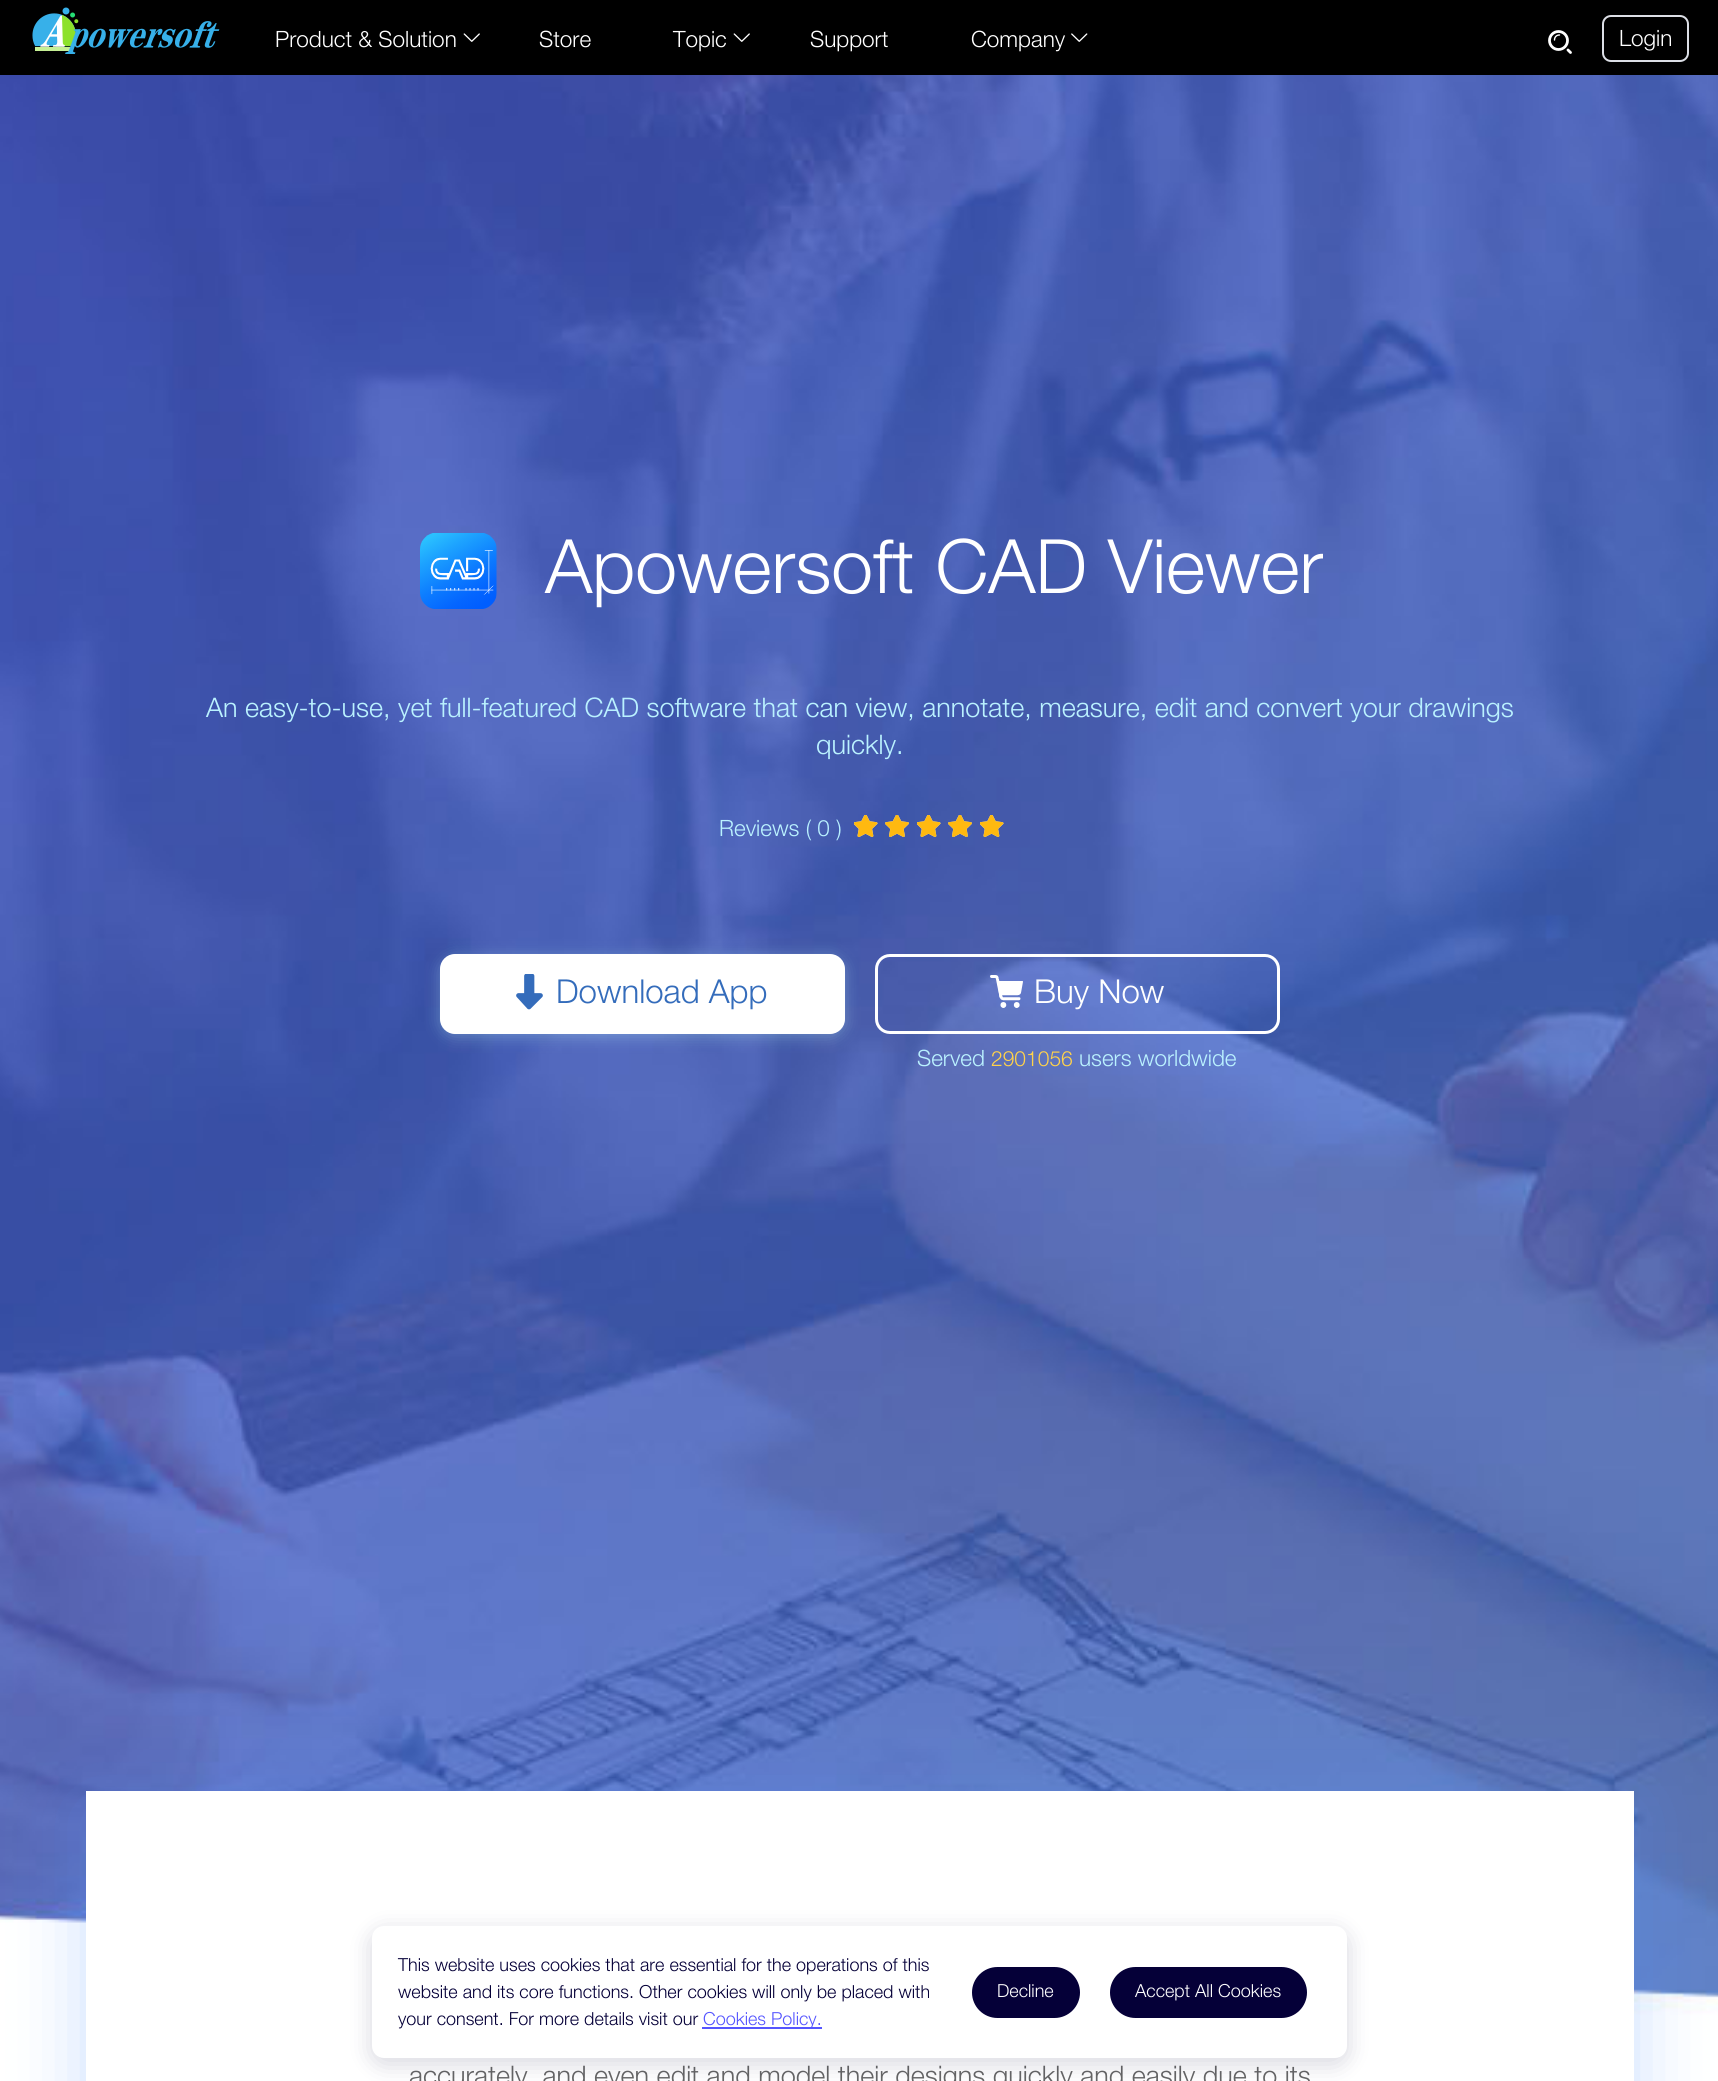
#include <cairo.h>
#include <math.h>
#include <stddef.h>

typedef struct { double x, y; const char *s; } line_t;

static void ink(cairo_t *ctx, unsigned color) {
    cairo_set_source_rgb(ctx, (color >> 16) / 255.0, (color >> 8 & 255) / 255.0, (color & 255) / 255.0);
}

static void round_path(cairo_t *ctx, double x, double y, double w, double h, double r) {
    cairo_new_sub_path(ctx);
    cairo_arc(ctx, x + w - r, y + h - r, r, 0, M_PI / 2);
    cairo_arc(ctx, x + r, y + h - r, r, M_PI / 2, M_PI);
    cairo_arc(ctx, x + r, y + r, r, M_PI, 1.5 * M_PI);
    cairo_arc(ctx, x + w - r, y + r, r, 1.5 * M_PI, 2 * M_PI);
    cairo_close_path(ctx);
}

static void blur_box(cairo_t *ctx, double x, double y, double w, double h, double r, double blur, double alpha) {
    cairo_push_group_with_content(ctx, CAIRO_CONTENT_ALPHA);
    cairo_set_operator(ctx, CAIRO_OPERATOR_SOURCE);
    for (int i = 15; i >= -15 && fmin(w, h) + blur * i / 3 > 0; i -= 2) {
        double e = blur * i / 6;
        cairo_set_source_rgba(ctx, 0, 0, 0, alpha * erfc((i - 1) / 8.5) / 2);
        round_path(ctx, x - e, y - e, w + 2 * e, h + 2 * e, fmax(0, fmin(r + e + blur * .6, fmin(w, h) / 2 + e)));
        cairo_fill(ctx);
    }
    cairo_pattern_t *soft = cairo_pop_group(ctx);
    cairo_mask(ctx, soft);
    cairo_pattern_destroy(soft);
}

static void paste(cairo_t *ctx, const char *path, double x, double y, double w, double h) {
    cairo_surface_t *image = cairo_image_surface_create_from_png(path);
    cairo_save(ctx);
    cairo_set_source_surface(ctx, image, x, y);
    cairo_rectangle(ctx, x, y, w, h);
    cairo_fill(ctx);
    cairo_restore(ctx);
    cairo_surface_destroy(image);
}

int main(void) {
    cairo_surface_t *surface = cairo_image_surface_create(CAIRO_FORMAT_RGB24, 1718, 2081);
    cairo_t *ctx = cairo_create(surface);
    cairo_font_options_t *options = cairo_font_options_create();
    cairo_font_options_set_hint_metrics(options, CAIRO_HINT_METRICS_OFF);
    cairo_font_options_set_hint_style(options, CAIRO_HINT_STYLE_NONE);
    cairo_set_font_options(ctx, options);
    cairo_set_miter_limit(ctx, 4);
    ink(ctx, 0xFFFFFF);
    cairo_paint(ctx);
    ink(ctx, 0x000000);
    cairo_rectangle(ctx, 0, 0, 1718, 75);
    cairo_fill(ctx);
    paste(ctx, "media/1.png", 32, 7, 188, 47);
    cairo_select_font_face(ctx, "Helvetica Neue Light", CAIRO_FONT_SLANT_NORMAL, CAIRO_FONT_WEIGHT_NORMAL);
    cairo_set_font_size(ctx, 22.5);
    ink(ctx, 0xFFFFFF);
    cairo_move_to(ctx, 275, 47);
    cairo_show_text(ctx, "Product & Solution");
    paste(ctx, "media/2.png", 463, 33, 17, 9);
    cairo_move_to(ctx, 539, 47);
    cairo_show_text(ctx, "Store");
    cairo_move_to(ctx, 673, 47);
    cairo_show_text(ctx, "Topic");
    paste(ctx, "media/2.png", 733, 33, 17, 9);
    cairo_move_to(ctx, 810, 47);
    cairo_show_text(ctx, "Support");
    cairo_move_to(ctx, 971, 47);
    cairo_show_text(ctx, "Company");
    paste(ctx, "media/3.png", 1071, 33, 17, 9);
    cairo_arc(ctx, 1558.5, 40.5, 9, 0, 2 * M_PI);
    cairo_set_line_width(ctx, 2.8);
    cairo_stroke(ctx);
    cairo_new_path(ctx);
    cairo_move_to(ctx, 1568, 50);
    cairo_line_to(ctx, 1570.5, 52.5);
    cairo_set_line_cap(ctx, CAIRO_LINE_CAP_ROUND);
    cairo_set_line_join(ctx, CAIRO_LINE_JOIN_ROUND);
    cairo_stroke(ctx);
    cairo_new_path(ctx);
    cairo_move_to(ctx, 1554.5, 40);
    cairo_curve_to(ctx, 1554.5, 37, 1556.5, 35, 1559.5, 35);
    cairo_set_line_width(ctx, 1.4);
    cairo_stroke(ctx);
    round_path(ctx, 1603, 16, 85, 45, 8);
    ink(ctx, 0xDCDFE6);
    cairo_set_line_width(ctx, 2);
    cairo_set_line_cap(ctx, CAIRO_LINE_CAP_BUTT);
    cairo_set_line_join(ctx, CAIRO_LINE_JOIN_MITER);
    cairo_stroke(ctx);
    ink(ctx, 0xFFFFFF);
    cairo_move_to(ctx, 1619, 46);
    cairo_show_text(ctx, "Login");
    paste(ctx, "media/4.png", 0, 75, 1718, 2006);
    paste(ctx, "media/5.png", 420, 533, 77, 76);
    cairo_set_font_size(ctx, 75);
    cairo_move_to(ctx, 545, 593);
    cairo_show_text(ctx, "Apowersoft CAD Viewer");
    cairo_set_font_size(ctx, 27);
    ink(ctx, 0xBAF2FF);
    cairo_move_to(ctx, 206, 717);
    cairo_show_text(ctx, "An easy-to-use, yet full-featured CAD software that can view, annotate, measure, edit and convert your drawings");
    cairo_move_to(ctx, 816, 754);
    cairo_show_text(ctx, "quickly.");
    cairo_set_font_size(ctx, 22.5);
    cairo_move_to(ctx, 719, 836);
    cairo_show_text(ctx, "Reviews ( 0 )");
    paste(ctx, "media/6.png", 854, 815, 24, 22);
    paste(ctx, "media/7.png", 885, 815, 24, 22);
    paste(ctx, "media/8.png", 917, 815, 24, 22);
    paste(ctx, "media/9.png", 948, 815, 24, 22);
    paste(ctx, "media/10.png", 980, 815, 24, 22);
    paste(ctx, "media/11.png", 854, 815, 24, 22);
    paste(ctx, "media/12.png", 885, 815, 24, 22);
    paste(ctx, "media/13.png", 917, 815, 24, 22);
    paste(ctx, "media/14.png", 948, 815, 24, 22);
    paste(ctx, "media/15.png", 980, 815, 24, 22);
    ink(ctx, 0xC0FEFF);
    blur_box(ctx, 440, 957, 405, 80, 15, 7.5, 0.3);
    ink(ctx, 0xFFFFFF);
    round_path(ctx, 440, 954, 405, 80, 15);
    cairo_fill(ctx);
    ink(ctx, 0x346CBB);
    cairo_new_path(ctx);
    cairo_move_to(ctx, 518.5, 995.5);
    cairo_line_to(ctx, 529, 1007);
    cairo_line_to(ctx, 540.5, 995.5);
    cairo_close_path(ctx);
    cairo_fill_preserve(ctx);
    cairo_set_line_width(ctx, 4.7);
    cairo_set_line_cap(ctx, CAIRO_LINE_CAP_ROUND);
    cairo_set_line_join(ctx, CAIRO_LINE_JOIN_ROUND);
    cairo_stroke(ctx);
    cairo_rectangle(ctx, 528, 976, 2, 23);
    cairo_fill(ctx);
    cairo_save(ctx);
    cairo_rectangle(ctx, 516, 974, 27, 36);
    cairo_clip(ctx);
    cairo_new_path(ctx);
    cairo_move_to(ctx, 526.5, 976);
    cairo_line_to(ctx, 532, 976);
    cairo_line_to(ctx, 532, 999);
    cairo_line_to(ctx, 526.5, 999);
    cairo_close_path(ctx);
    cairo_stroke(ctx);
    cairo_restore(ctx);
    cairo_set_font_size(ctx, 33);
    cairo_move_to(ctx, 556, 1003);
    cairo_show_text(ctx, "Download App");
    round_path(ctx, 876.5, 955.5, 402, 77, 13.5);
    ink(ctx, 0xFFFFFF);
    cairo_set_line_width(ctx, 3);
    cairo_set_line_cap(ctx, CAIRO_LINE_CAP_BUTT);
    cairo_set_line_join(ctx, CAIRO_LINE_JOIN_MITER);
    cairo_stroke(ctx);
    paste(ctx, "media/16.png", 990, 975, 33, 33);
    cairo_move_to(ctx, 1034, 1003);
    cairo_show_text(ctx, "Buy Now");
    cairo_set_font_size(ctx, 22.5);
    ink(ctx, 0xBAF2FF);
    cairo_move_to(ctx, 917, 1066);
    cairo_show_text(ctx, "Served");
    cairo_set_font_size(ctx, 21);
    ink(ctx, 0xFFD24A);
    cairo_move_to(ctx, 991, 1066);
    cairo_show_text(ctx, "2901056");
    cairo_set_font_size(ctx, 22.5);
    ink(ctx, 0xBAF2FF);
    cairo_move_to(ctx, 1079, 1066);
    cairo_show_text(ctx, "users worldwide");
    ink(ctx, 0x5093FC);
    blur_box(ctx, 86, 1806, 1548, 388, 0, 37.5, 0.3);
    ink(ctx, 0xFFFFFF);
    cairo_rectangle(ctx, 86, 1791, 1548, 290);
    cairo_fill(ctx);
    cairo_set_font_size(ctx, 27);
    ink(ctx, 0x666666);
    cairo_move_to(ctx, 409, 2085);
    cairo_show_text(ctx, "accurately, and even edit and model their designs quickly and easily due to its");
    ink(ctx, 0x050038);
    blur_box(ctx, 372, 1932, 975, 132, 12, 12, 0.16);
    ink(ctx, 0xFFFFFF);
    round_path(ctx, 372, 1926, 975, 132, 12);
    cairo_fill(ctx);
    cairo_set_font_size(ctx, 18);
    ink(ctx, 0x050038);
    {
        static const line_t items[] = {
            {398, 1971, "This website uses cookies that are essential for the operations of this"},
            {398, 1998, "website and its core functions. Other cookies will only be placed with"},
            {398, 2025, "your consent. For more details visit our"},
        };
        for (size_t i = 0; i < sizeof items / sizeof *items; i++) {
            cairo_move_to(ctx, items[i].x, items[i].y);
            cairo_show_text(ctx, items[i].s);
        }
    }
    ink(ctx, 0x5555FF);
    cairo_rectangle(ctx, 702, 2027, 120, 2);
    cairo_fill(ctx);
    cairo_move_to(ctx, 703, 2025);
    cairo_show_text(ctx, "Cookies Policy.");
    ink(ctx, 0x050038);
    round_path(ctx, 973, 1968, 106, 49, 24.5);
    cairo_fill_preserve(ctx);
    cairo_set_line_width(ctx, 2);
    cairo_stroke(ctx);
    ink(ctx, 0xFFFFFF);
    cairo_move_to(ctx, 997, 1997);
    cairo_show_text(ctx, "Decline");
    ink(ctx, 0x050038);
    round_path(ctx, 1111, 1968, 195, 49, 24.5);
    cairo_fill_preserve(ctx);
    cairo_stroke(ctx);
    ink(ctx, 0xFFFFFF);
    cairo_move_to(ctx, 1135, 1997);
    cairo_show_text(ctx, "Accept All Cookies");
    cairo_surface_write_to_png(surface, "image.png");
    cairo_font_options_destroy(options);
    cairo_destroy(ctx);
    cairo_surface_destroy(surface);
    return 0;
}
